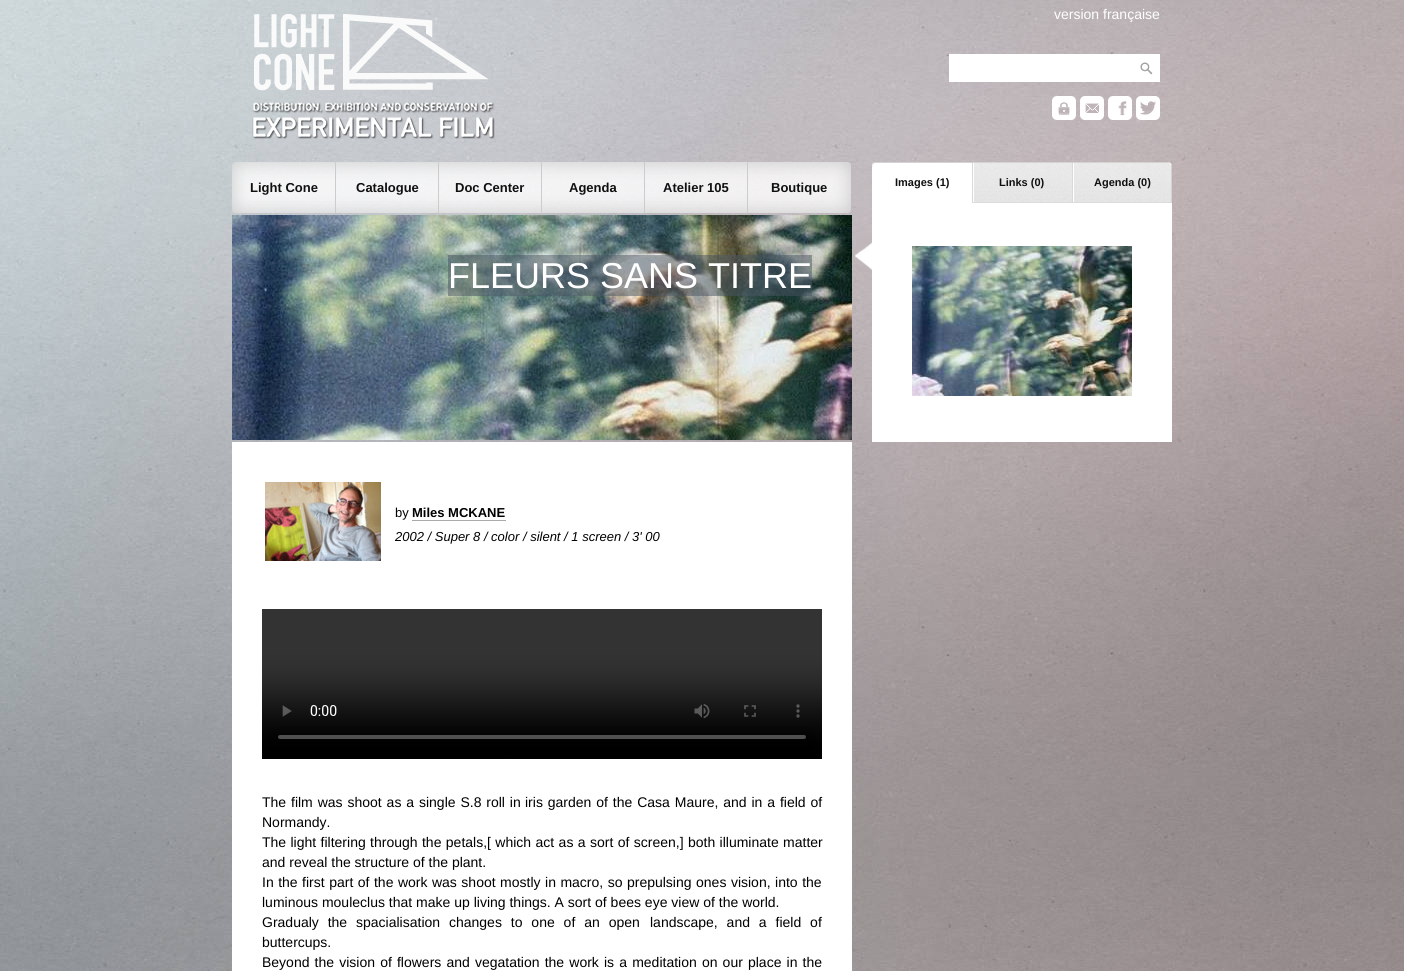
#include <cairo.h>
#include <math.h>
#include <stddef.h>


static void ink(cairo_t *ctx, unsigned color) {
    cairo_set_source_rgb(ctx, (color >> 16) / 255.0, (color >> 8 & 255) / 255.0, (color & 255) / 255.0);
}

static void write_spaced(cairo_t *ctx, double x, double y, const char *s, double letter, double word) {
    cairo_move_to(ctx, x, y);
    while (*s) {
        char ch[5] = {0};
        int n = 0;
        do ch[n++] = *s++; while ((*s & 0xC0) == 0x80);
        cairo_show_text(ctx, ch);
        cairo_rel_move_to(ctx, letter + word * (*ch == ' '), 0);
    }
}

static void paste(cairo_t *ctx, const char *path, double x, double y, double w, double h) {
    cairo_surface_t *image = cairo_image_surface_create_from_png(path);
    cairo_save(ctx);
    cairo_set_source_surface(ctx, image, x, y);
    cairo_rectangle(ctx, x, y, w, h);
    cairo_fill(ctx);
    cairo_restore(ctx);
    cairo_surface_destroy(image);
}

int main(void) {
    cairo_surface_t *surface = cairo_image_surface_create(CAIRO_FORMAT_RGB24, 1404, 971);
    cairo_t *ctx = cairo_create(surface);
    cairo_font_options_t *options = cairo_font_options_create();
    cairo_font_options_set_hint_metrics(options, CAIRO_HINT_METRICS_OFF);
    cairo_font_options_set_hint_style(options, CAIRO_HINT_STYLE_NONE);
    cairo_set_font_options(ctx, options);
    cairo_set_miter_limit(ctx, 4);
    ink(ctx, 0xFFFFFF);
    cairo_paint(ctx);
    paste(ctx, "media/1.png", 0, 0, 1404, 971);
    paste(ctx, "media/2.png", 252, 14, 243, 125);
    cairo_select_font_face(ctx, "Liberation Sans", CAIRO_FONT_SLANT_NORMAL, CAIRO_FONT_WEIGHT_NORMAL);
    cairo_set_font_size(ctx, 14);
    ink(ctx, 0xFFFFFF);
    cairo_move_to(ctx, 1054, 19);
    cairo_show_text(ctx, "version française");
    cairo_rectangle(ctx, 949, 54, 211, 28);
    cairo_fill(ctx);
    paste(ctx, "media/3.png", 1140, 62, 13, 13);
    paste(ctx, "media/4.png", 1052, 96, 24, 24);
    paste(ctx, "media/5.png", 1080, 96, 24, 24);
    paste(ctx, "media/6.png", 1108, 96, 24, 24);
    paste(ctx, "media/7.png", 1136, 96, 24, 24);
    paste(ctx, "media/8.png", 232, 162, 103, 51);
    cairo_select_font_face(ctx, "Liberation Sans", CAIRO_FONT_SLANT_NORMAL, CAIRO_FONT_WEIGHT_BOLD);
    cairo_set_font_size(ctx, 13);
    ink(ctx, 0x101010);
    cairo_move_to(ctx, 250, 192);
    cairo_show_text(ctx, "Light Cone");
    paste(ctx, "media/9.png", 336, 162, 102, 51);
    ink(ctx, 0xCCCCCC);
    cairo_rectangle(ctx, 335, 162, 1, 51);
    cairo_fill(ctx);
    ink(ctx, 0x101010);
    cairo_move_to(ctx, 356, 192);
    cairo_show_text(ctx, "Catalogue");
    paste(ctx, "media/10.png", 439, 162, 102, 51);
    ink(ctx, 0xCCCCCC);
    cairo_rectangle(ctx, 438, 162, 1, 51);
    cairo_fill(ctx);
    ink(ctx, 0x101010);
    cairo_move_to(ctx, 455, 192);
    cairo_show_text(ctx, "Doc Center");
    paste(ctx, "media/11.png", 542, 162, 102, 51);
    ink(ctx, 0xCCCCCC);
    cairo_rectangle(ctx, 541, 162, 1, 51);
    cairo_fill(ctx);
    ink(ctx, 0x101010);
    cairo_move_to(ctx, 569, 192);
    cairo_show_text(ctx, "Agenda");
    paste(ctx, "media/12.png", 645, 162, 102, 51);
    ink(ctx, 0xCCCCCC);
    cairo_rectangle(ctx, 644, 162, 1, 51);
    cairo_fill(ctx);
    ink(ctx, 0x101010);
    cairo_move_to(ctx, 663, 192);
    cairo_show_text(ctx, "Atelier 105");
    paste(ctx, "media/13.png", 748, 162, 103, 51);
    ink(ctx, 0xCCCCCC);
    cairo_rectangle(ctx, 747, 162, 1, 51);
    cairo_fill(ctx);
    ink(ctx, 0x101010);
    cairo_move_to(ctx, 771, 192);
    cairo_show_text(ctx, "Boutique");
    paste(ctx, "media/14.png", 855, 242, 17, 28);
    paste(ctx, "media/15.png", 872, 162, 100, 41);
    cairo_set_font_size(ctx, 11);
    cairo_move_to(ctx, 895, 186);
    cairo_show_text(ctx, "Images (1)");
    paste(ctx, "media/16.png", 972, 162, 100, 41);
    cairo_move_to(ctx, 999, 186);
    cairo_show_text(ctx, "Links (0)");
    paste(ctx, "media/17.png", 1072, 162, 100, 41);
    cairo_move_to(ctx, 1094, 186);
    cairo_show_text(ctx, "Agenda (0)");
    ink(ctx, 0xFFFFFF);
    cairo_rectangle(ctx, 872, 203, 300, 239);
    cairo_fill(ctx);
    paste(ctx, "media/18.png", 912, 246, 220, 150);
    paste(ctx, "media/19.png", 232, 215, 620, 225);
    cairo_set_source_rgba(ctx, 0.29, 0.337, 0.392, 0.5);
    cairo_rectangle(ctx, 448, 255, 364, 41);
    cairo_fill(ctx);
    cairo_select_font_face(ctx, "Liberation Sans", CAIRO_FONT_SLANT_NORMAL, CAIRO_FONT_WEIGHT_NORMAL);
    cairo_set_font_size(ctx, 36);
    ink(ctx, 0xFFFFFF);
    cairo_move_to(ctx, 448, 288);
    cairo_show_text(ctx, "FLEURS SANS TITRE");
    cairo_rectangle(ctx, 232, 442, 620, 529);
    cairo_fill(ctx);
    paste(ctx, "media/20.png", 265, 482, 116, 79);
    cairo_set_font_size(ctx, 13);
    ink(ctx, 0x000000);
    cairo_move_to(ctx, 395, 517);
    cairo_show_text(ctx, "by");
    cairo_select_font_face(ctx, "Liberation Sans", CAIRO_FONT_SLANT_NORMAL, CAIRO_FONT_WEIGHT_BOLD);
    cairo_move_to(ctx, 412, 517);
    cairo_show_text(ctx, "Miles MCKANE");
    ink(ctx, 0xAAAAAA);
    cairo_rectangle(ctx, 412, 520, 94, 1);
    cairo_fill(ctx);
    cairo_select_font_face(ctx, "Liberation Sans", CAIRO_FONT_SLANT_ITALIC, CAIRO_FONT_WEIGHT_NORMAL);
    ink(ctx, 0x000000);
    cairo_move_to(ctx, 395, 541);
    cairo_show_text(ctx, "2002 / Super 8 / color / silent / 1 screen / 3' 00");
    paste(ctx, "media/21.png", 262, 609, 560, 150);
    cairo_select_font_face(ctx, "Liberation Sans", CAIRO_FONT_SLANT_NORMAL, CAIRO_FONT_WEIGHT_NORMAL);
    cairo_set_font_size(ctx, 14);
    write_spaced(ctx, 262, 807, "The film was shoot as a single S.8 roll in", 0, 1);
    write_spaced(ctx, 525, 807, "iris garden of the Casa Maure, and in a field of", 0, 1);
    cairo_move_to(ctx, 262, 827);
    cairo_show_text(ctx, "Normandy.");
    write_spaced(ctx, 262, 847, "The light filtering through the petals,[ which act as a sort of screen,] both illuminate matter", 0, 0.5);
    cairo_move_to(ctx, 262, 867);
    cairo_show_text(ctx, "and reveal the structure of the plant.");
    write_spaced(ctx, 262, 887, "In the first part of the work was shoot mostly in macro, so prepulsing ones vision, into the", 0, 0.6);
    cairo_move_to(ctx, 262, 907);
    cairo_show_text(ctx, "luminous mouleclus that make up living things. A sort of bees eye view of the world.");
    write_spaced(ctx, 262, 927, "Gradualy the spacialisation changes to one of an open", 0, 5);
    write_spaced(ctx, 650, 927, "landscape, and a field of", 0, 5);
    cairo_move_to(ctx, 262, 947);
    cairo_show_text(ctx, "buttercups.");
    write_spaced(ctx, 262, 967, "Beyond the vision of flowers and vegatation the work is a meditation on our place in the", 0, 1.25);
    cairo_surface_write_to_png(surface, "image.png");
    cairo_font_options_destroy(options);
    cairo_destroy(ctx);
    cairo_surface_destroy(surface);
    return 0;
}
